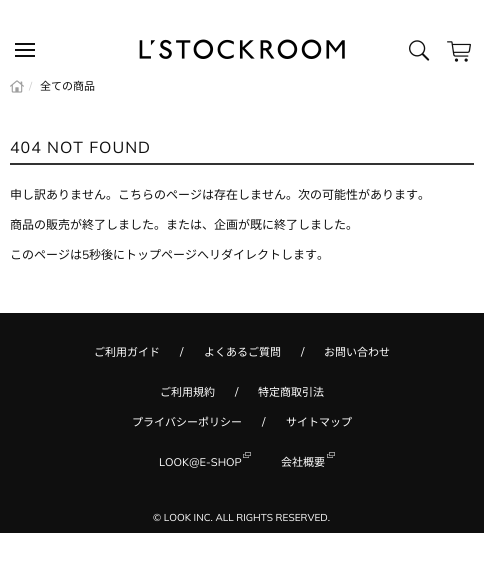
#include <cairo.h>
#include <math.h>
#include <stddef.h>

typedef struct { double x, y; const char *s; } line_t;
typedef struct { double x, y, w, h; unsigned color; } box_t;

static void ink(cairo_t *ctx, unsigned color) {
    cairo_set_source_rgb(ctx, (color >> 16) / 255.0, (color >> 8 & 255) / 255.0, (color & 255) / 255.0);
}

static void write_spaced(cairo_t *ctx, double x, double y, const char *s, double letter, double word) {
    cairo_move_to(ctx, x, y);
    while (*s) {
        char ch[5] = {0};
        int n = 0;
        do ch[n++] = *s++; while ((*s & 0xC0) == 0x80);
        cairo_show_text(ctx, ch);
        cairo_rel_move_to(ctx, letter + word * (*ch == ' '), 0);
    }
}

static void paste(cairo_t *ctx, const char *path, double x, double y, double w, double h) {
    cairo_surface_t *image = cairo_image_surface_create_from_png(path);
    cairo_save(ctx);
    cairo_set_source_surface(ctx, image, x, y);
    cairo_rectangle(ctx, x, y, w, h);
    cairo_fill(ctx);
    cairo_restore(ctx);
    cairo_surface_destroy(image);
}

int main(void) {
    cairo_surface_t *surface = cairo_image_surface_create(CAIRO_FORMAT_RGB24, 484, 570);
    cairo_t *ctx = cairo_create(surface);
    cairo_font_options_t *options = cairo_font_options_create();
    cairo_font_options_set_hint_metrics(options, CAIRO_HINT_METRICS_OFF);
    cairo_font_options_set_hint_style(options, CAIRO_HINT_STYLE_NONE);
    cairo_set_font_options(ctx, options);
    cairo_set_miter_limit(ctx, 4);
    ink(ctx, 0xFFFFFF);
    cairo_paint(ctx);
    {
        static const box_t items[] = {
            {15, 43, 20, 2, 0x0F0F0F},
            {15, 49, 20, 2, 0x0F0F0F},
            {15, 55, 20, 2, 0x0F0F0F},
        };
        for (size_t i = 0; i < sizeof items / sizeof *items; i++) {
            ink(ctx, items[i].color);
            cairo_rectangle(ctx, items[i].x, items[i].y, items[i].w, items[i].h);
            cairo_fill(ctx);
        }
    }
    paste(ctx, "media/1.png", 139, 39, 206, 20);
    paste(ctx, "media/2.png", 409, 40, 21, 21);
    paste(ctx, "media/3.png", 447, 41, 24, 21);
    paste(ctx, "media/4.png", 10, 80, 14, 13);
    cairo_select_font_face(ctx, "Mulish", CAIRO_FONT_SLANT_NORMAL, CAIRO_FONT_WEIGHT_NORMAL);
    cairo_set_font_size(ctx, 11);
    ink(ctx, 0xCCCCCC);
    cairo_move_to(ctx, 29, 90);
    cairo_show_text(ctx, "/");
    cairo_select_font_face(ctx, "Noto Sans JP", CAIRO_FONT_SLANT_NORMAL, CAIRO_FONT_WEIGHT_NORMAL);
    ink(ctx, 0x0F0F0F);
    cairo_move_to(ctx, 40, 90);
    cairo_show_text(ctx, "全ての商品");
    ink(ctx, 0x333333);
    cairo_rectangle(ctx, 10, 163, 464, 2);
    cairo_fill(ctx);
    cairo_select_font_face(ctx, "Mulish", CAIRO_FONT_SLANT_NORMAL, CAIRO_FONT_WEIGHT_NORMAL);
    cairo_set_font_size(ctx, 16);
    ink(ctx, 0x0F0F0F);
    write_spaced(ctx, 10, 153, "404 NOT FOUND", 1, 0);
    cairo_select_font_face(ctx, "Noto Sans JP", CAIRO_FONT_SLANT_NORMAL, CAIRO_FONT_WEIGHT_NORMAL);
    cairo_set_font_size(ctx, 12);
    {
        static const line_t items[] = {
            {10, 199, "申し訳ありません。こちらのページは存在しません。次の可能性があります。"},
            {10, 229, "商品の販売が終了しました。または、企画が既に終了しました。"},
            {10, 259, "このページは"},
        };
        for (size_t i = 0; i < sizeof items / sizeof *items; i++) {
            cairo_move_to(ctx, items[i].x, items[i].y);
            cairo_show_text(ctx, items[i].s);
        }
    }
    cairo_select_font_face(ctx, "Mulish", CAIRO_FONT_SLANT_NORMAL, CAIRO_FONT_WEIGHT_NORMAL);
    cairo_move_to(ctx, 82, 259);
    cairo_show_text(ctx, "5");
    cairo_select_font_face(ctx, "Noto Sans JP", CAIRO_FONT_SLANT_NORMAL, CAIRO_FONT_WEIGHT_NORMAL);
    cairo_move_to(ctx, 89, 259);
    cairo_show_text(ctx, "秒後にトップページへリダイレクトします。");
    cairo_rectangle(ctx, 0, 313, 484, 220);
    cairo_fill(ctx);
    cairo_set_font_size(ctx, 11);
    ink(ctx, 0xFFFFFF);
    cairo_move_to(ctx, 94, 356);
    cairo_show_text(ctx, "ご利用ガイド");
    cairo_select_font_face(ctx, "Mulish", CAIRO_FONT_SLANT_NORMAL, CAIRO_FONT_WEIGHT_NORMAL);
    cairo_set_font_size(ctx, 12);
    cairo_move_to(ctx, 180, 356);
    cairo_show_text(ctx, "/");
    cairo_select_font_face(ctx, "Noto Sans JP", CAIRO_FONT_SLANT_NORMAL, CAIRO_FONT_WEIGHT_NORMAL);
    cairo_set_font_size(ctx, 11);
    cairo_move_to(ctx, 204, 356);
    cairo_show_text(ctx, "よくあるご質問");
    cairo_select_font_face(ctx, "Mulish", CAIRO_FONT_SLANT_NORMAL, CAIRO_FONT_WEIGHT_NORMAL);
    cairo_set_font_size(ctx, 12);
    cairo_move_to(ctx, 301, 356);
    cairo_show_text(ctx, "/");
    cairo_select_font_face(ctx, "Noto Sans JP", CAIRO_FONT_SLANT_NORMAL, CAIRO_FONT_WEIGHT_NORMAL);
    cairo_set_font_size(ctx, 11);
    cairo_move_to(ctx, 324, 356);
    cairo_show_text(ctx, "お問い合わせ");
    cairo_move_to(ctx, 160, 396);
    cairo_show_text(ctx, "ご利用規約");
    cairo_select_font_face(ctx, "Mulish", CAIRO_FONT_SLANT_NORMAL, CAIRO_FONT_WEIGHT_NORMAL);
    cairo_set_font_size(ctx, 12);
    cairo_move_to(ctx, 235, 396);
    cairo_show_text(ctx, "/");
    cairo_select_font_face(ctx, "Noto Sans JP", CAIRO_FONT_SLANT_NORMAL, CAIRO_FONT_WEIGHT_NORMAL);
    cairo_set_font_size(ctx, 11);
    cairo_move_to(ctx, 258, 396);
    cairo_show_text(ctx, "特定商取引法");
    cairo_move_to(ctx, 132, 426);
    cairo_show_text(ctx, "プライバシーポリシー");
    cairo_select_font_face(ctx, "Mulish", CAIRO_FONT_SLANT_NORMAL, CAIRO_FONT_WEIGHT_NORMAL);
    cairo_set_font_size(ctx, 12);
    cairo_move_to(ctx, 262, 426);
    cairo_show_text(ctx, "/");
    cairo_select_font_face(ctx, "Noto Sans JP", CAIRO_FONT_SLANT_NORMAL, CAIRO_FONT_WEIGHT_NORMAL);
    cairo_set_font_size(ctx, 11);
    cairo_move_to(ctx, 286, 426);
    cairo_show_text(ctx, "サイトマップ");
    paste(ctx, "media/5.png", 243, 452, 8, 6);
    cairo_select_font_face(ctx, "Mulish", CAIRO_FONT_SLANT_NORMAL, CAIRO_FONT_WEIGHT_NORMAL);
    cairo_move_to(ctx, 159, 466);
    cairo_show_text(ctx, "LOOK@E-SHOP");
    paste(ctx, "media/5.png", 327, 452, 8, 6);
    cairo_select_font_face(ctx, "Noto Sans JP", CAIRO_FONT_SLANT_NORMAL, CAIRO_FONT_WEIGHT_NORMAL);
    cairo_move_to(ctx, 281, 466);
    cairo_show_text(ctx, "会社概要");
    cairo_select_font_face(ctx, "Mulish", CAIRO_FONT_SLANT_NORMAL, CAIRO_FONT_WEIGHT_NORMAL);
    cairo_set_font_size(ctx, 10);
    cairo_move_to(ctx, 153, 521);
    cairo_show_text(ctx, "© LOOK INC. ALL RIGHTS RESERVED.");
    cairo_surface_write_to_png(surface, "image.png");
    cairo_font_options_destroy(options);
    cairo_destroy(ctx);
    cairo_surface_destroy(surface);
    return 0;
}
